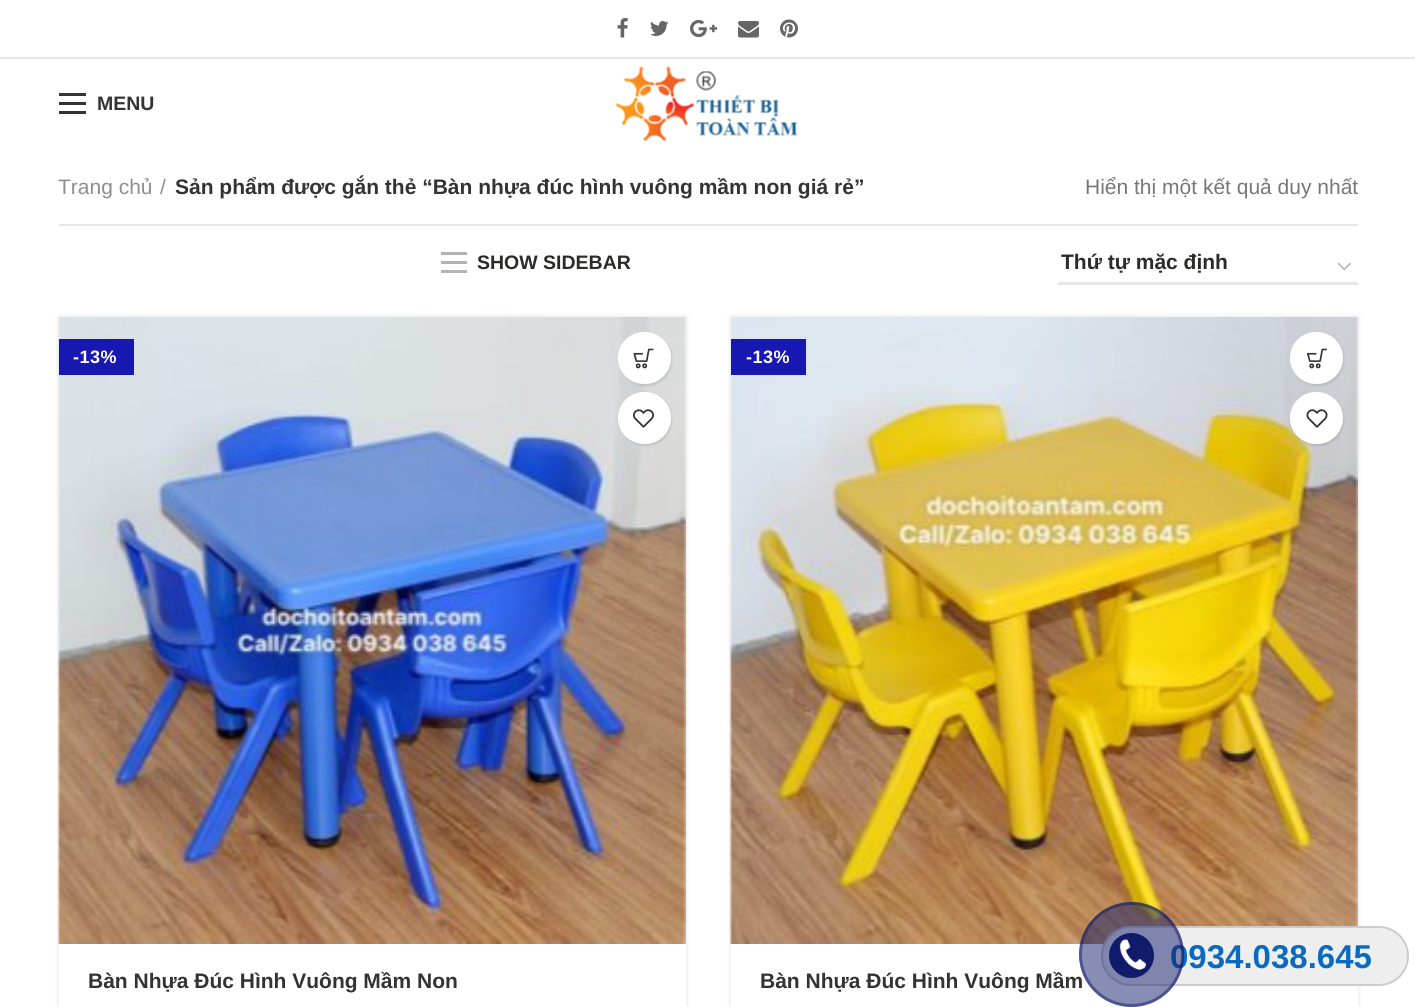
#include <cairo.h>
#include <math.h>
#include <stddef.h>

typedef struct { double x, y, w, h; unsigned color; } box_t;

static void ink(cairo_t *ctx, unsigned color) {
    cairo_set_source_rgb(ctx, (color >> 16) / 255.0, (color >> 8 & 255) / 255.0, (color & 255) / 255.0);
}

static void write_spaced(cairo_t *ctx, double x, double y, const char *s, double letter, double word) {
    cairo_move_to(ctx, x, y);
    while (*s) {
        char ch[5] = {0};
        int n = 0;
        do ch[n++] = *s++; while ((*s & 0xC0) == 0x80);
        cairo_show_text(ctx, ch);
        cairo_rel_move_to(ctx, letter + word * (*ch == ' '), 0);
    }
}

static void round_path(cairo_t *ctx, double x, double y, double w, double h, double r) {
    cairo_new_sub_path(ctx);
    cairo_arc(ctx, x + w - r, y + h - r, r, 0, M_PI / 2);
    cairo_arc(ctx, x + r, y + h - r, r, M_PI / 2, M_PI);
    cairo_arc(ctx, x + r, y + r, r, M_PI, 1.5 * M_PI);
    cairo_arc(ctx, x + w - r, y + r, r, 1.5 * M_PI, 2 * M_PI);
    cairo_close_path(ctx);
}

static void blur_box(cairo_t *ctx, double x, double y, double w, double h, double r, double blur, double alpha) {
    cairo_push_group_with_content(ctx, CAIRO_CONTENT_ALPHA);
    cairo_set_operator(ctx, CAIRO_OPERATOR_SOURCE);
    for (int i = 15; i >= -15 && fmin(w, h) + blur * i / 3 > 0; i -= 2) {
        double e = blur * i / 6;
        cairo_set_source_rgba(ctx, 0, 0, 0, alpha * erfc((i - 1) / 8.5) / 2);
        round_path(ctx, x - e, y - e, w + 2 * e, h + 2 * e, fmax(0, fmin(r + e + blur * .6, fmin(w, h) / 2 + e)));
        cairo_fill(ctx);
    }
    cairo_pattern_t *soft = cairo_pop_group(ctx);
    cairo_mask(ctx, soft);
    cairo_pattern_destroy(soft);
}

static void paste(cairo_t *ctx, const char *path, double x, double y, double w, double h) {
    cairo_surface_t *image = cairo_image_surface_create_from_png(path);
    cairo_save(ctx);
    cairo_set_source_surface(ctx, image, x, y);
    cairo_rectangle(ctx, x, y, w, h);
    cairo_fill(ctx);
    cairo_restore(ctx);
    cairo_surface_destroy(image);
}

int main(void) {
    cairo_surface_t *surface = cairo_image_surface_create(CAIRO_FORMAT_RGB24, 1415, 1007);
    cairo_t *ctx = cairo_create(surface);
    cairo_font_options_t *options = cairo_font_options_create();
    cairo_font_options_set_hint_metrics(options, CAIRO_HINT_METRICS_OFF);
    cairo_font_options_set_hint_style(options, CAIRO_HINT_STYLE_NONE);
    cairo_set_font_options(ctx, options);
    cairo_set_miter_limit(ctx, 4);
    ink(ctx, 0xFFFFFF);
    cairo_paint(ctx);
    ink(ctx, 0xE6E6E6);
    cairo_rectangle(ctx, 0, 57, 1415, 2);
    cairo_fill(ctx);
    paste(ctx, "media/1.png", 617, 18, 11, 20);
    paste(ctx, "media/2.png", 650, 21, 19, 15);
    paste(ctx, "media/3.png", 690, 19, 27, 19);
    paste(ctx, "media/4.png", 738, 21, 21, 17);
    paste(ctx, "media/5.png", 780, 19, 18, 19);
    {
        static const box_t items[] = {
            {59, 102, 27, 3, 0x333333},
            {59, 93, 27, 3, 0x333333},
            {59, 111, 27, 3, 0x333333},
        };
        for (size_t i = 0; i < sizeof items / sizeof *items; i++) {
            ink(ctx, items[i].color);
            cairo_rectangle(ctx, items[i].x, items[i].y, items[i].w, items[i].h);
            cairo_fill(ctx);
        }
    }
    cairo_select_font_face(ctx, "Liberation Sans", CAIRO_FONT_SLANT_NORMAL, CAIRO_FONT_WEIGHT_BOLD);
    cairo_set_font_size(ctx, 19.5);
    cairo_move_to(ctx, 97, 110);
    cairo_show_text(ctx, "MENU");
    paste(ctx, "media/6.png", 615, 66, 183, 76);
    ink(ctx, 0xE6E6E6);
    cairo_rectangle(ctx, 59, 224, 1299, 2);
    cairo_fill(ctx);
    cairo_select_font_face(ctx, "Liberation Sans", CAIRO_FONT_SLANT_NORMAL, CAIRO_FONT_WEIGHT_NORMAL);
    cairo_set_font_size(ctx, 21);
    ink(ctx, 0x8E8E8E);
    cairo_move_to(ctx, 58, 194);
    cairo_show_text(ctx, "Trang chủ");
    cairo_move_to(ctx, 160, 194);
    cairo_show_text(ctx, "/");
    cairo_select_font_face(ctx, "Liberation Sans", CAIRO_FONT_SLANT_NORMAL, CAIRO_FONT_WEIGHT_BOLD);
    ink(ctx, 0x333333);
    cairo_move_to(ctx, 175, 194);
    cairo_show_text(ctx, "Sản phẩm được gắn thẻ “Bàn nhựa đúc hình vuông mầm non giá rẻ”");
    cairo_select_font_face(ctx, "Liberation Sans", CAIRO_FONT_SLANT_NORMAL, CAIRO_FONT_WEIGHT_NORMAL);
    ink(ctx, 0x777777);
    cairo_move_to(ctx, 1085, 194);
    cairo_show_text(ctx, "Hiển thị một kết quả duy nhất");
    {
        static const box_t items[] = {
            {441, 261, 26, 3, 0xB3B3B3},
            {441, 252, 26, 3, 0xB3B3B3},
            {441, 270, 26, 3, 0xB3B3B3},
        };
        for (size_t i = 0; i < sizeof items / sizeof *items; i++) {
            ink(ctx, items[i].color);
            cairo_rectangle(ctx, items[i].x, items[i].y, items[i].w, items[i].h);
            cairo_fill(ctx);
        }
    }
    cairo_select_font_face(ctx, "Liberation Sans", CAIRO_FONT_SLANT_NORMAL, CAIRO_FONT_WEIGHT_BOLD);
    cairo_set_font_size(ctx, 19.5);
    ink(ctx, 0x2D2A2A);
    cairo_move_to(ctx, 477, 269);
    cairo_show_text(ctx, "SHOW SIDEBAR");
    ink(ctx, 0xE6E6E6);
    cairo_rectangle(ctx, 1058, 282, 300, 3);
    cairo_fill(ctx);
    cairo_set_font_size(ctx, 21);
    ink(ctx, 0x2D2A2A);
    cairo_move_to(ctx, 1061, 269);
    cairo_show_text(ctx, "Thứ tự mặc định");
    paste(ctx, "media/7.png", 1337, 262, 14, 9);
    cairo_save(ctx);
    cairo_set_fill_rule(ctx, CAIRO_FILL_RULE_EVEN_ODD);
    cairo_new_path(ctx);
    cairo_move_to(ctx, 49, 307);
    cairo_line_to(ctx, 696, 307);
    cairo_line_to(ctx, 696, 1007);
    cairo_line_to(ctx, 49, 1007);
    cairo_close_path(ctx);
    cairo_move_to(ctx, 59, 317);
    cairo_line_to(ctx, 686, 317);
    cairo_line_to(ctx, 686, 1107);
    cairo_line_to(ctx, 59, 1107);
    cairo_close_path(ctx);
    cairo_clip(ctx);
    ink(ctx, 0x000000);
    blur_box(ctx, 59, 317, 627, 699, 0, 3, 0.12);
    cairo_restore(ctx);
    paste(ctx, "media/8.png", 58, 317, 628, 627);
    ink(ctx, 0x1717B2);
    cairo_rectangle(ctx, 59, 339, 75, 36);
    cairo_fill(ctx);
    cairo_set_font_size(ctx, 18);
    ink(ctx, 0xFFFFFF);
    write_spaced(ctx, 73, 363, "-13%", 0.5, 0);
    ink(ctx, 0x000000);
    blur_box(ctx, 620, 333, 52, 53, 26, 1, 0.1);
    ink(ctx, 0xFFFFFF);
    round_path(ctx, 618, 332, 53, 52, 26);
    cairo_fill(ctx);
    paste(ctx, "media/9.png", 633, 348, 21, 21);
    ink(ctx, 0x000000);
    blur_box(ctx, 620, 393, 52, 53, 26, 1, 0.1);
    ink(ctx, 0xFFFFFF);
    round_path(ctx, 618, 392, 53, 52, 26);
    cairo_fill(ctx);
    paste(ctx, "media/10.png", 633, 409, 21, 19);
    cairo_rectangle(ctx, 685, 944, 1, 63);
    cairo_fill(ctx);
    cairo_set_font_size(ctx, 21);
    ink(ctx, 0x333333);
    cairo_move_to(ctx, 88, 988);
    cairo_show_text(ctx, "Bàn Nhựa Đúc Hình Vuông Mầm Non");
    cairo_save(ctx);
    cairo_set_fill_rule(ctx, CAIRO_FILL_RULE_EVEN_ODD);
    cairo_new_path(ctx);
    cairo_move_to(ctx, 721, 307);
    cairo_line_to(ctx, 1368, 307);
    cairo_line_to(ctx, 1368, 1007);
    cairo_line_to(ctx, 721, 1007);
    cairo_close_path(ctx);
    cairo_move_to(ctx, 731, 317);
    cairo_line_to(ctx, 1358, 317);
    cairo_line_to(ctx, 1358, 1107);
    cairo_line_to(ctx, 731, 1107);
    cairo_close_path(ctx);
    cairo_clip(ctx);
    ink(ctx, 0x000000);
    blur_box(ctx, 731, 317, 627, 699, 0, 3, 0.12);
    cairo_restore(ctx);
    paste(ctx, "media/11.png", 730, 317, 628, 627);
    ink(ctx, 0x1717B2);
    cairo_rectangle(ctx, 731, 339, 75, 36);
    cairo_fill(ctx);
    cairo_set_font_size(ctx, 18);
    ink(ctx, 0xFFFFFF);
    write_spaced(ctx, 746, 363, "-13%", 0.5, 0);
    ink(ctx, 0x000000);
    blur_box(ctx, 1292, 333, 52, 53, 26, 1, 0.1);
    ink(ctx, 0xFFFFFF);
    round_path(ctx, 1290, 332, 53, 52, 26);
    cairo_fill(ctx);
    paste(ctx, "media/12.png", 1307, 348, 20, 21);
    ink(ctx, 0x000000);
    blur_box(ctx, 1292, 393, 52, 53, 26, 1, 0.1);
    ink(ctx, 0xFFFFFF);
    round_path(ctx, 1290, 392, 53, 52, 26);
    cairo_fill(ctx);
    paste(ctx, "media/13.png", 1306, 409, 22, 19);
    cairo_rectangle(ctx, 1357, 944, 1, 63);
    cairo_fill(ctx);
    cairo_set_font_size(ctx, 21);
    ink(ctx, 0x333333);
    cairo_move_to(ctx, 760, 988);
    cairo_show_text(ctx, "Bàn Nhựa Đúc Hình Vuông Mầm");
    ink(ctx, 0xEEEEEE);
    round_path(ctx, 1102, 927, 306, 58, 29);
    cairo_fill_preserve(ctx);
    ink(ctx, 0xCCCCCC);
    cairo_stroke(ctx);
    cairo_set_font_size(ctx, 33);
    ink(ctx, 0x096ABF);
    cairo_move_to(ctx, 1170, 968);
    cairo_show_text(ctx, "0934.038.645");
    cairo_set_source_rgba(ctx, 0.063, 0.11, 0.42, 0.5);
    cairo_new_path(ctx);
    cairo_arc(ctx, 1131.5, 954.5, 52.5, 0, 2 * M_PI);
    cairo_fill(ctx);
    cairo_arc(ctx, 1131.5, 954.5, 51, 0, 2 * M_PI);
    cairo_set_line_width(ctx, 3);
    cairo_stroke(ctx);
    ink(ctx, 0x101C6B);
    cairo_arc(ctx, 1131.5, 955.5, 22.5, 0, 2 * M_PI);
    cairo_fill(ctx);
    paste(ctx, "media/14.png", 1119, 939, 27, 31);
    cairo_surface_write_to_png(surface, "image.png");
    cairo_font_options_destroy(options);
    cairo_destroy(ctx);
    cairo_surface_destroy(surface);
    return 0;
}
